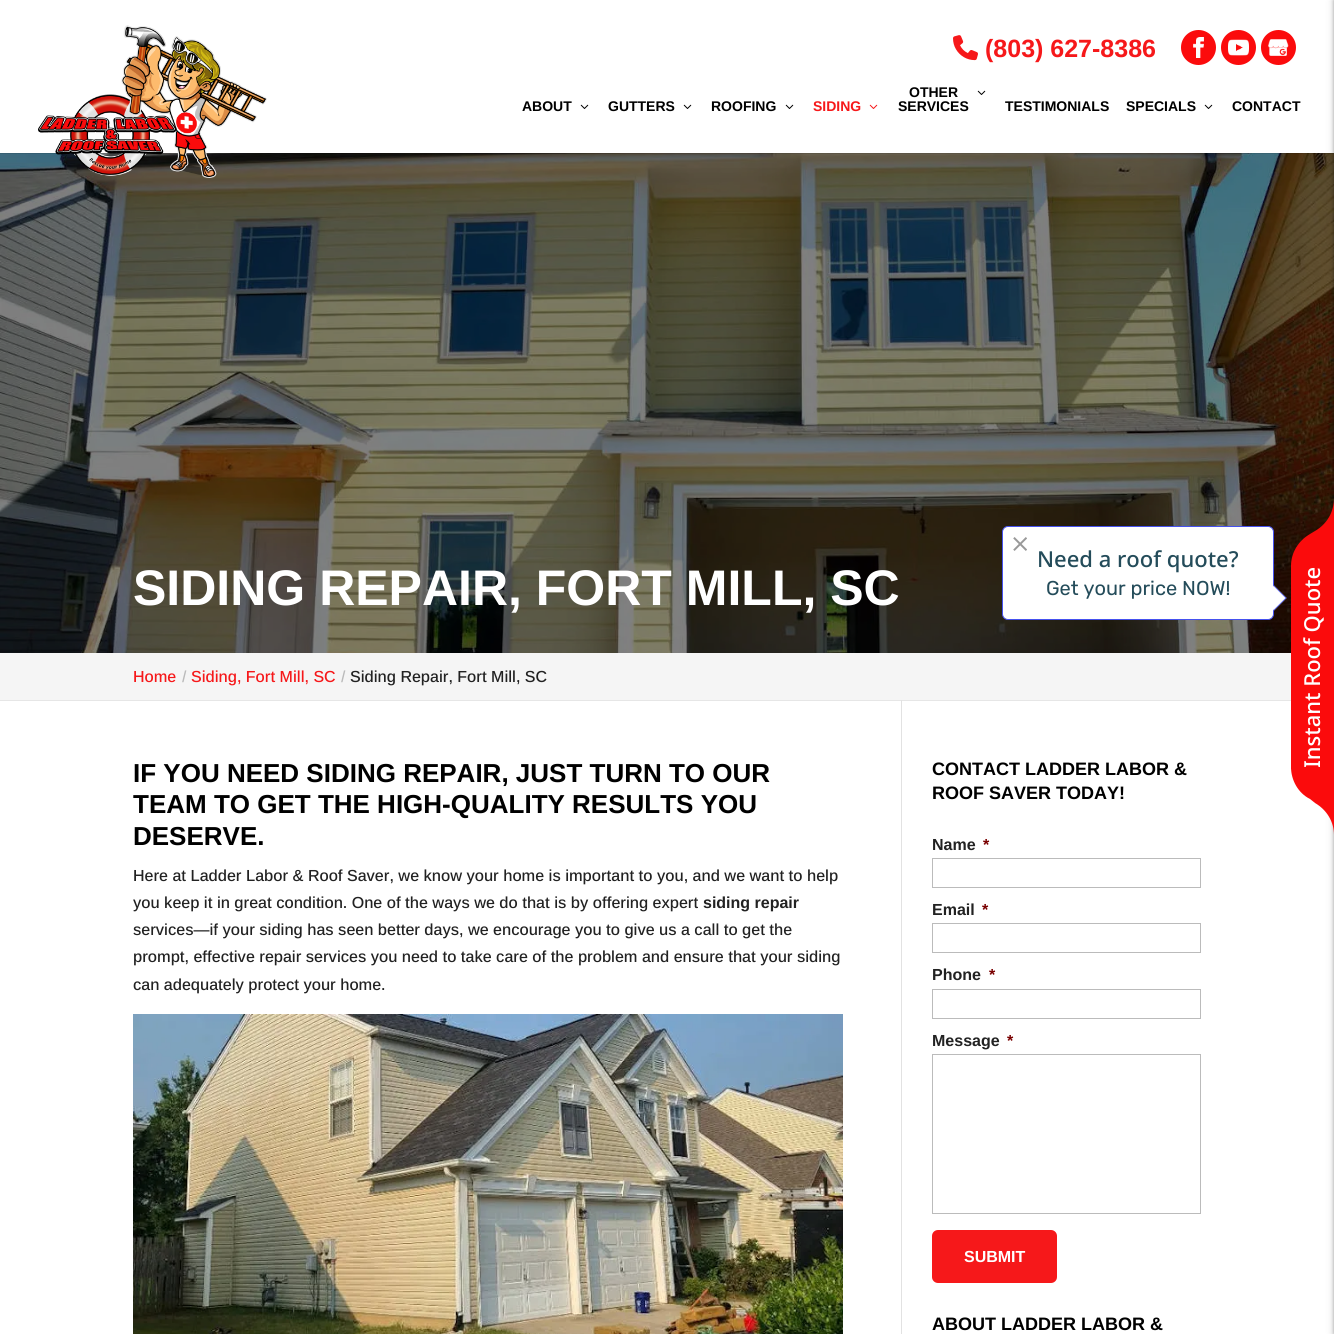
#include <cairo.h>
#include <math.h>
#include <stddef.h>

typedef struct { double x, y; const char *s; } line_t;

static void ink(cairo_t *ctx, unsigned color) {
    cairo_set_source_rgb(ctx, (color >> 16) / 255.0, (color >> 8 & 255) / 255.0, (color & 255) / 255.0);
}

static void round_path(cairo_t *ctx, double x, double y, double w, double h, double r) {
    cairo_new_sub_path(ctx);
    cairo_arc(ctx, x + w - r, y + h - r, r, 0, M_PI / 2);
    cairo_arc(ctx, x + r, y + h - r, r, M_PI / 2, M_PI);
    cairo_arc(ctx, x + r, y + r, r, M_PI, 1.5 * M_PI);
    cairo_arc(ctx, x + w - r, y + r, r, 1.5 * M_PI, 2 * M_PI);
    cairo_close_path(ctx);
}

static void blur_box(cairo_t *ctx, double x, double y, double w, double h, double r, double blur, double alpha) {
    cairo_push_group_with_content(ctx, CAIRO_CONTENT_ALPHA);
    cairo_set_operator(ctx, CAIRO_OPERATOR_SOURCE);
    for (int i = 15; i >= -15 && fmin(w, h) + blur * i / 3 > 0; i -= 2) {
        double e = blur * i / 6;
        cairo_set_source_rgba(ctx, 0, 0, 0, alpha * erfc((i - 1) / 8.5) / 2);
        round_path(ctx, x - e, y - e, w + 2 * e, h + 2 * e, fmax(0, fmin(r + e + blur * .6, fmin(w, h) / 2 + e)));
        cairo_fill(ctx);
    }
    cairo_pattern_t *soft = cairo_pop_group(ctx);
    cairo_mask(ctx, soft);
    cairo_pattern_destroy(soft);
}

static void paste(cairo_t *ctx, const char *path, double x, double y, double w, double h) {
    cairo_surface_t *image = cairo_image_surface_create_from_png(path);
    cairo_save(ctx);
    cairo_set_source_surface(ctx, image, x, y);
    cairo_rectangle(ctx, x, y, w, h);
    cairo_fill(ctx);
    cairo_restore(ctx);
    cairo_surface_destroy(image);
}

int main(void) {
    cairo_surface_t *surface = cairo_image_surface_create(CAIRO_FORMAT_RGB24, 1334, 1334);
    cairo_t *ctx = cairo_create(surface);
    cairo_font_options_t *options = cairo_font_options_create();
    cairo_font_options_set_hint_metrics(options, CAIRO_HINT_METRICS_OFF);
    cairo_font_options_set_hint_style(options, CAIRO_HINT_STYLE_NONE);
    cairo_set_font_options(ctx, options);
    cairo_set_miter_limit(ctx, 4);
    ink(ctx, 0xFFFFFF);
    cairo_paint(ctx);
    paste(ctx, "media/8.png", 0, 153, 1334, 500);
    cairo_set_source_rgba(ctx, 0, 0, 0, 0.1);
    cairo_rectangle(ctx, 0, 153, 1334, 1);
    cairo_fill(ctx);
    paste(ctx, "media/1.png", 38, 25, 229, 153);
    paste(ctx, "media/2.png", 953, 35, 25, 26);
    cairo_select_font_face(ctx, "Arimo", CAIRO_FONT_SLANT_NORMAL, CAIRO_FONT_WEIGHT_BOLD);
    cairo_set_font_size(ctx, 25);
    ink(ctx, 0xF6181A);
    cairo_move_to(ctx, 985, 57);
    cairo_show_text(ctx, "(803) 627-8386");
    ink(ctx, 0xFB0B0C);
    cairo_new_path(ctx);
    cairo_arc(ctx, 1198.5, 47.5, 17.5, 0, 2 * M_PI);
    cairo_fill(ctx);
    paste(ctx, "media/3.png", 1193, 37, 11, 21);
    cairo_arc(ctx, 1238.5, 47.5, 17.5, 0, 2 * M_PI);
    cairo_fill(ctx);
    paste(ctx, "media/4.png", 1228, 39, 21, 17);
    cairo_arc(ctx, 1278.5, 47.5, 17.5, 0, 2 * M_PI);
    cairo_fill(ctx);
    paste(ctx, "media/5.png", 1268, 39, 21, 17);
    cairo_set_font_size(ctx, 14);
    ink(ctx, 0x000000);
    cairo_move_to(ctx, 522, 111);
    cairo_show_text(ctx, "ABOUT");
    paste(ctx, "media/6.png", 580, 104, 9, 5);
    cairo_move_to(ctx, 608, 111);
    cairo_show_text(ctx, "GUTTERS");
    paste(ctx, "media/6.png", 683, 104, 9, 5);
    cairo_move_to(ctx, 711, 111);
    cairo_show_text(ctx, "ROOFING");
    paste(ctx, "media/6.png", 785, 104, 9, 5);
    ink(ctx, 0xF6181A);
    cairo_move_to(ctx, 813, 111);
    cairo_show_text(ctx, "SIDING");
    paste(ctx, "media/7.png", 869, 104, 9, 5);
    ink(ctx, 0x000000);
    cairo_move_to(ctx, 909, 97);
    cairo_show_text(ctx, "OTHER");
    paste(ctx, "media/6.png", 977, 90, 9, 5);
    {
        static const line_t items[] = {
            {898, 111, "SERVICES"},
            {1005, 111, "TESTIMONIALS"},
            {1126, 111, "SPECIALS"},
        };
        for (size_t i = 0; i < sizeof items / sizeof *items; i++) {
            cairo_move_to(ctx, items[i].x, items[i].y);
            cairo_show_text(ctx, items[i].s);
        }
    }
    paste(ctx, "media/6.png", 1204, 104, 9, 5);
    cairo_move_to(ctx, 1232, 111);
    cairo_show_text(ctx, "CONTACT");
    cairo_set_font_size(ctx, 50);
    ink(ctx, 0xFFFFFF);
    cairo_move_to(ctx, 133, 605);
    cairo_show_text(ctx, "SIDING REPAIR, FORT MILL, SC");
    ink(ctx, 0xE6E6E6);
    cairo_rectangle(ctx, 0, 700, 1291, 1);
    cairo_fill(ctx);
    ink(ctx, 0xF5F5F5);
    cairo_rectangle(ctx, 0, 653, 1291, 47);
    cairo_fill(ctx);
    cairo_select_font_face(ctx, "Arimo Medium", CAIRO_FONT_SLANT_NORMAL, CAIRO_FONT_WEIGHT_NORMAL);
    cairo_set_font_size(ctx, 16);
    ink(ctx, 0xF6181A);
    cairo_move_to(ctx, 133, 682);
    cairo_show_text(ctx, "Home");
    ink(ctx, 0xBBBBBB);
    cairo_move_to(ctx, 182, 682);
    cairo_show_text(ctx, "/");
    ink(ctx, 0xF6181A);
    cairo_move_to(ctx, 191, 682);
    cairo_show_text(ctx, "Siding, Fort Mill, SC");
    ink(ctx, 0xBBBBBB);
    cairo_move_to(ctx, 341, 682);
    cairo_show_text(ctx, "/");
    ink(ctx, 0x222222);
    cairo_move_to(ctx, 350, 682);
    cairo_show_text(ctx, "Siding Repair, Fort Mill, SC");
    ink(ctx, 0xE2E2E2);
    cairo_rectangle(ctx, 901, 700, 1, 634);
    cairo_fill(ctx);
    cairo_select_font_face(ctx, "Arimo", CAIRO_FONT_SLANT_NORMAL, CAIRO_FONT_WEIGHT_BOLD);
    cairo_set_font_size(ctx, 26);
    ink(ctx, 0x000000);
    {
        static const line_t items[] = {
            {133, 782, "IF YOU NEED SIDING REPAIR, JUST TURN TO OUR"},
            {133, 813, "TEAM TO GET THE HIGH-QUALITY RESULTS YOU"},
            {133, 845, "DESERVE."},
        };
        for (size_t i = 0; i < sizeof items / sizeof *items; i++) {
            cairo_move_to(ctx, items[i].x, items[i].y);
            cairo_show_text(ctx, items[i].s);
        }
    }
    cairo_select_font_face(ctx, "Arimo Medium", CAIRO_FONT_SLANT_NORMAL, CAIRO_FONT_WEIGHT_NORMAL);
    cairo_set_font_size(ctx, 16);
    ink(ctx, 0x222222);
    cairo_move_to(ctx, 133, 881);
    cairo_show_text(ctx, "Here at Ladder Labor & Roof Saver, we know your home is important to you, and we want to help");
    cairo_move_to(ctx, 133, 908);
    cairo_show_text(ctx, "you keep it in great condition. One of the ways we do that is by offering expert");
    cairo_select_font_face(ctx, "Arimo", CAIRO_FONT_SLANT_NORMAL, CAIRO_FONT_WEIGHT_BOLD);
    cairo_move_to(ctx, 703, 908);
    cairo_show_text(ctx, "siding repair");
    cairo_select_font_face(ctx, "Arimo Medium", CAIRO_FONT_SLANT_NORMAL, CAIRO_FONT_WEIGHT_NORMAL);
    {
        static const line_t items[] = {
            {133, 935, "services—if your siding has seen better days, we encourage you to give us a call to get the"},
            {133, 962, "prompt, effective repair services you need to take care of the problem and ensure that your siding"},
            {133, 990, "can adequately protect your home."},
        };
        for (size_t i = 0; i < sizeof items / sizeof *items; i++) {
            cairo_move_to(ctx, items[i].x, items[i].y);
            cairo_show_text(ctx, items[i].s);
        }
    }
    paste(ctx, "media/9.png", 133, 1014, 710, 320);
    cairo_select_font_face(ctx, "Arimo", CAIRO_FONT_SLANT_NORMAL, CAIRO_FONT_WEIGHT_BOLD);
    cairo_set_font_size(ctx, 18);
    ink(ctx, 0x000000);
    cairo_move_to(ctx, 932, 775);
    cairo_show_text(ctx, "CONTACT LADDER LABOR &");
    cairo_move_to(ctx, 932, 799);
    cairo_show_text(ctx, "ROOF SAVER TODAY!");
    cairo_set_font_size(ctx, 16);
    ink(ctx, 0x222222);
    cairo_move_to(ctx, 932, 850);
    cairo_show_text(ctx, "Name");
    ink(ctx, 0x790000);
    cairo_move_to(ctx, 983, 850);
    cairo_show_text(ctx, "*");
    cairo_rectangle(ctx, 932.5, 858.5, 268, 29);
    ink(ctx, 0xBBBBBB);
    cairo_set_line_width(ctx, 1);
    cairo_stroke(ctx);
    ink(ctx, 0x222222);
    cairo_move_to(ctx, 932, 915);
    cairo_show_text(ctx, "Email");
    ink(ctx, 0x790000);
    cairo_move_to(ctx, 982, 915);
    cairo_show_text(ctx, "*");
    cairo_rectangle(ctx, 932.5, 923.5, 268, 29);
    ink(ctx, 0xBBBBBB);
    cairo_stroke(ctx);
    ink(ctx, 0x222222);
    cairo_move_to(ctx, 932, 980);
    cairo_show_text(ctx, "Phone");
    ink(ctx, 0x790000);
    cairo_move_to(ctx, 989, 980);
    cairo_show_text(ctx, "*");
    cairo_rectangle(ctx, 932.5, 989.5, 268, 29);
    ink(ctx, 0xBBBBBB);
    cairo_stroke(ctx);
    ink(ctx, 0x222222);
    cairo_move_to(ctx, 932, 1046);
    cairo_show_text(ctx, "Message");
    ink(ctx, 0x790000);
    cairo_move_to(ctx, 1007, 1046);
    cairo_show_text(ctx, "*");
    cairo_rectangle(ctx, 932.5, 1054.5, 268, 159);
    ink(ctx, 0xBBBBBB);
    cairo_stroke(ctx);
    ink(ctx, 0xF6181A);
    round_path(ctx, 932, 1230, 125, 53, 6);
    cairo_fill(ctx);
    ink(ctx, 0xFFFFFF);
    cairo_move_to(ctx, 964, 1262);
    cairo_show_text(ctx, "SUBMIT");
    cairo_set_font_size(ctx, 18);
    ink(ctx, 0x000000);
    cairo_move_to(ctx, 932, 1330);
    cairo_show_text(ctx, "ABOUT LADDER LABOR &");
    ink(ctx, 0x000000);
    blur_box(ctx, 1334, 0, 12, 1334, 0, 4, 0.2);
    blur_box(ctx, 1334, 0, 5, 1334, 0, 1.5, 0.12);
    blur_box(ctx, 1334, 0, 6, 1334, 0, 2, 0.14);
    ink(ctx, 0xFFFFFF);
    round_path(ctx, 1002.5, 526.5, 271, 93, 5.5);
    cairo_fill_preserve(ctx);
    ink(ctx, 0x4551EF);
    cairo_stroke(ctx);
    paste(ctx, "media/10.png", 1013, 537, 14, 14);
    cairo_select_font_face(ctx, "Noto Sans Medium", CAIRO_FONT_SLANT_NORMAL, CAIRO_FONT_WEIGHT_NORMAL);
    cairo_set_font_size(ctx, 22);
    ink(ctx, 0x244C5A);
    cairo_move_to(ctx, 1037, 567);
    cairo_show_text(ctx, "Need a roof quote?");
    cairo_select_font_face(ctx, "Rubik", CAIRO_FONT_SLANT_NORMAL, CAIRO_FONT_WEIGHT_NORMAL);
    cairo_set_font_size(ctx, 20);
    cairo_move_to(ctx, 1046, 595);
    cairo_show_text(ctx, "Get your price NOW!");
    ink(ctx, 0xFFFFFF);
    cairo_new_path(ctx);
    cairo_move_to(ctx, 1274, 585.5);
    cairo_line_to(ctx, 1286.5, 598);
    cairo_line_to(ctx, 1274, 610.5);
    cairo_line_to(ctx, 1261.5, 598);
    cairo_close_path(ctx);
    cairo_fill(ctx);
    ink(ctx, 0x4551EF);
    cairo_new_path(ctx);
    cairo_move_to(ctx, 1274, 585.5);
    cairo_line_to(ctx, 1286.5, 598);
    cairo_line_to(ctx, 1286, 598.5);
    cairo_line_to(ctx, 1273.5, 586);
    cairo_close_path(ctx);
    cairo_fill(ctx);
    cairo_new_path(ctx);
    cairo_move_to(ctx, 1286, 597.5);
    cairo_line_to(ctx, 1286.5, 598);
    cairo_line_to(ctx, 1274, 610.5);
    cairo_line_to(ctx, 1273.5, 610);
    cairo_close_path(ctx);
    cairo_fill(ctx);
    ink(ctx, 0xFB0B0C);
    cairo_rectangle(ctx, 1291, 565, 43, 204);
    cairo_fill(ctx);
    cairo_set_fill_rule(ctx, CAIRO_FILL_RULE_EVEN_ODD);
    cairo_new_path(ctx);
    cairo_move_to(ctx, 1291, 566);
    cairo_line_to(ctx, 1334, 566);
    cairo_line_to(ctx, 1334, 498);
    cairo_curve_to(ctx, 1334, 512, 1327, 524, 1315, 531);
    cairo_line_to(ctx, 1310, 534);
    cairo_curve_to(ctx, 1298, 541, 1291, 553, 1291, 566);
    cairo_close_path(ctx);
    cairo_fill(ctx);
    cairo_select_font_face(ctx, "Noto Sans Medium", CAIRO_FONT_SLANT_NORMAL, CAIRO_FONT_WEIGHT_NORMAL);
    cairo_set_font_size(ctx, 22);
    ink(ctx, 0xFFFFFF);
    cairo_save(ctx);
    cairo_translate(ctx, 1320, 768);
    cairo_rotate(ctx, -90 * M_PI / 180);
    cairo_move_to(ctx, 0, 0);
    cairo_show_text(ctx, "Instant Roof Quote");
    cairo_restore(ctx);
    ink(ctx, 0xFB0B0C);
    cairo_new_path(ctx);
    cairo_move_to(ctx, 1291, 767);
    cairo_line_to(ctx, 1334, 767);
    cairo_line_to(ctx, 1334, 835);
    cairo_curve_to(ctx, 1334, 822, 1327, 810, 1315, 803);
    cairo_line_to(ctx, 1310, 799);
    cairo_curve_to(ctx, 1298, 793, 1291, 780, 1291, 767);
    cairo_close_path(ctx);
    cairo_fill(ctx);
    cairo_surface_write_to_png(surface, "image.png");
    cairo_font_options_destroy(options);
    cairo_destroy(ctx);
    cairo_surface_destroy(surface);
    return 0;
}
